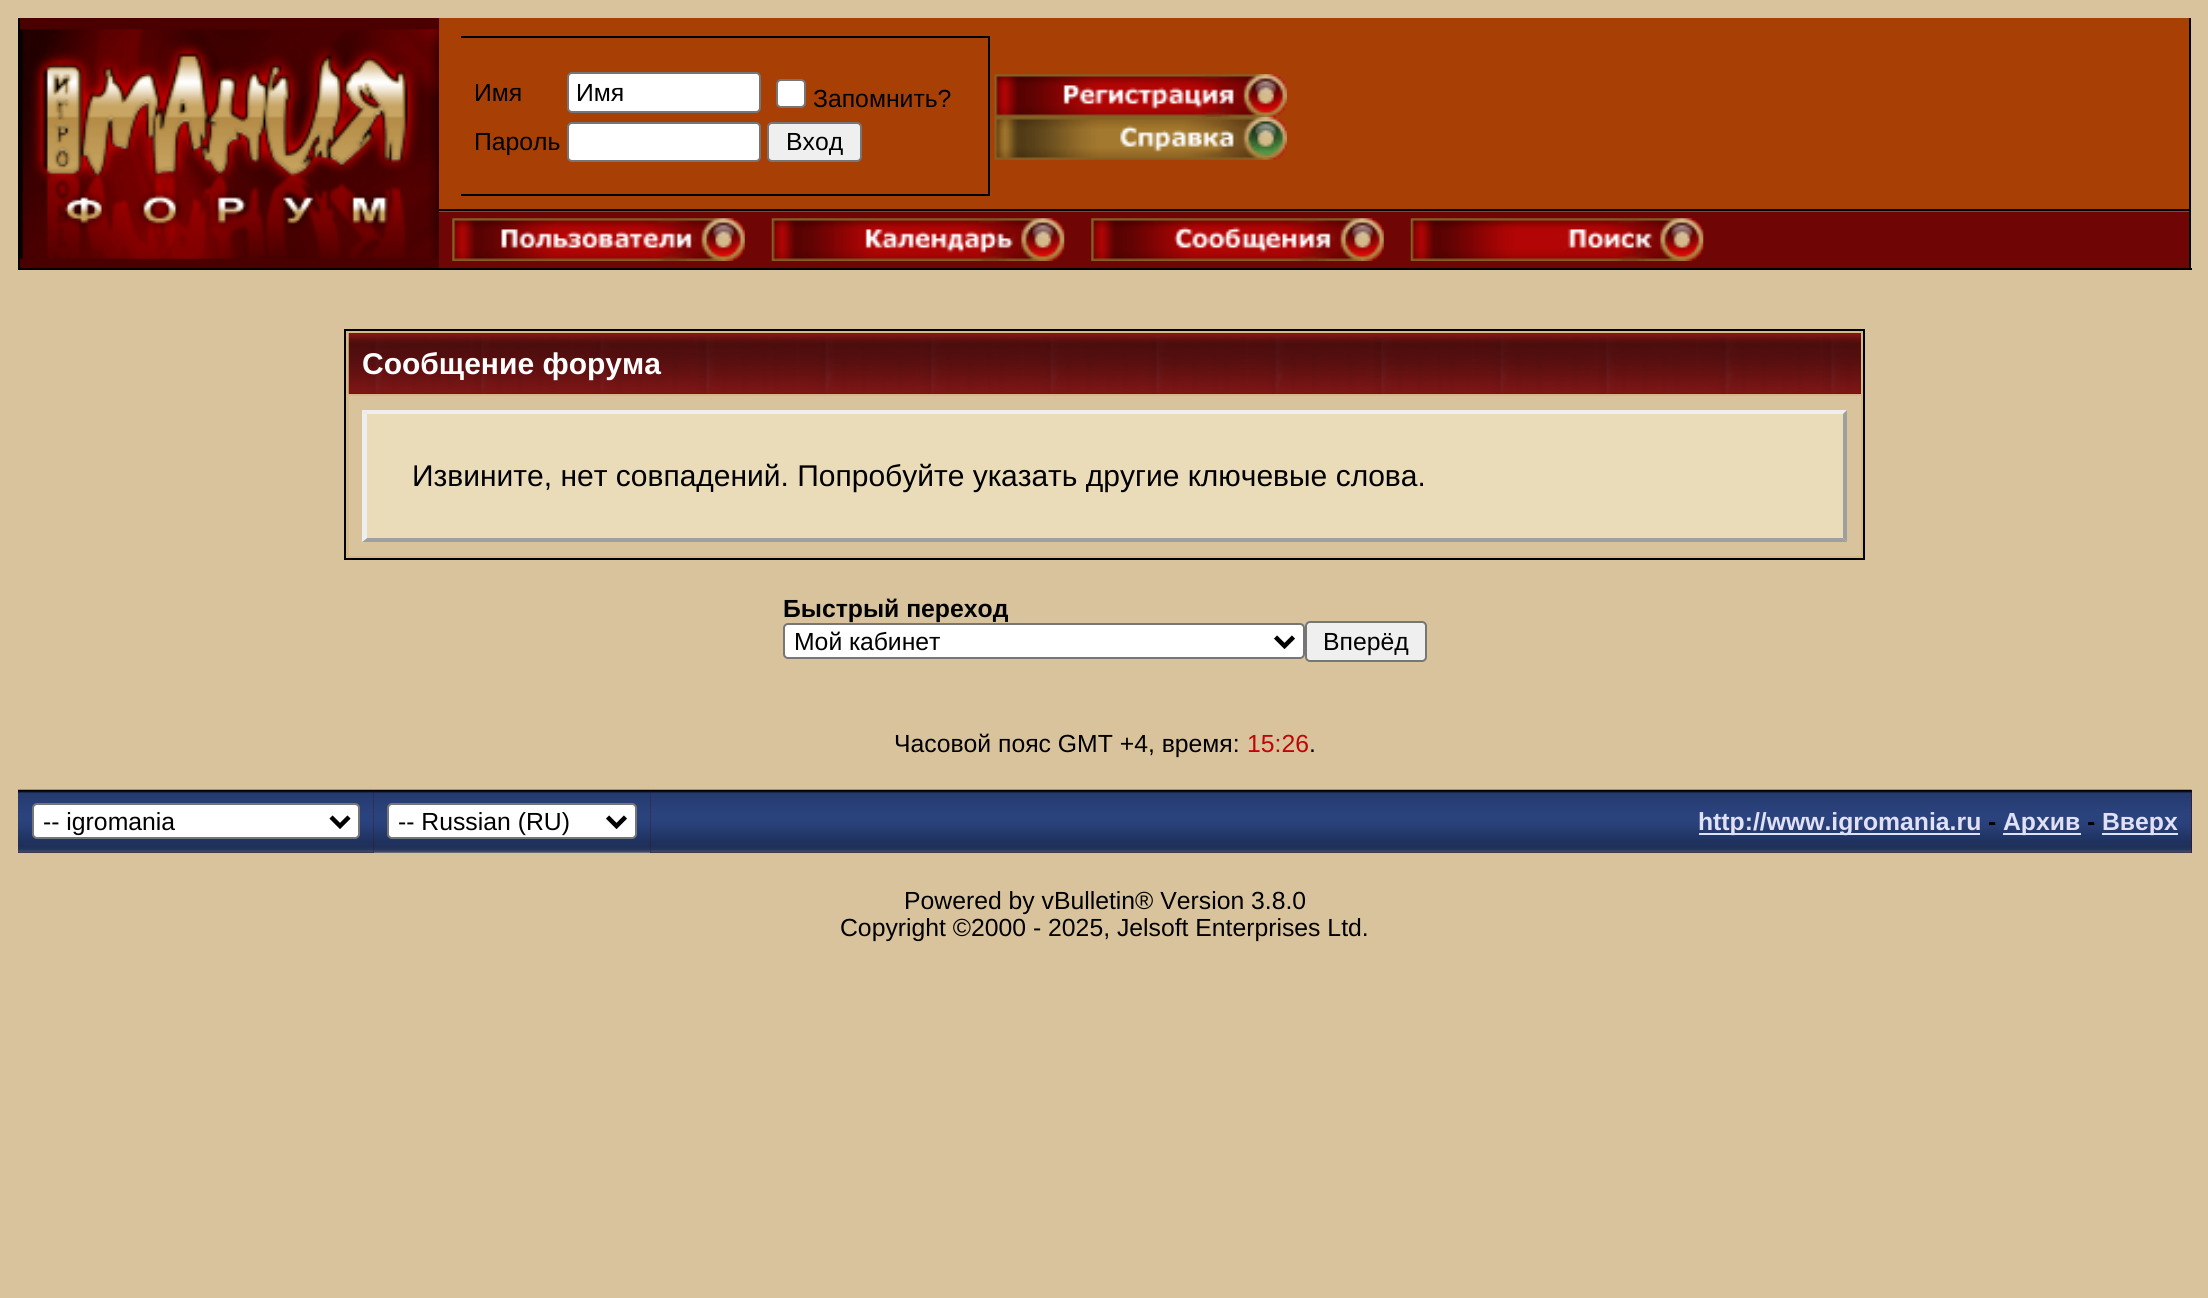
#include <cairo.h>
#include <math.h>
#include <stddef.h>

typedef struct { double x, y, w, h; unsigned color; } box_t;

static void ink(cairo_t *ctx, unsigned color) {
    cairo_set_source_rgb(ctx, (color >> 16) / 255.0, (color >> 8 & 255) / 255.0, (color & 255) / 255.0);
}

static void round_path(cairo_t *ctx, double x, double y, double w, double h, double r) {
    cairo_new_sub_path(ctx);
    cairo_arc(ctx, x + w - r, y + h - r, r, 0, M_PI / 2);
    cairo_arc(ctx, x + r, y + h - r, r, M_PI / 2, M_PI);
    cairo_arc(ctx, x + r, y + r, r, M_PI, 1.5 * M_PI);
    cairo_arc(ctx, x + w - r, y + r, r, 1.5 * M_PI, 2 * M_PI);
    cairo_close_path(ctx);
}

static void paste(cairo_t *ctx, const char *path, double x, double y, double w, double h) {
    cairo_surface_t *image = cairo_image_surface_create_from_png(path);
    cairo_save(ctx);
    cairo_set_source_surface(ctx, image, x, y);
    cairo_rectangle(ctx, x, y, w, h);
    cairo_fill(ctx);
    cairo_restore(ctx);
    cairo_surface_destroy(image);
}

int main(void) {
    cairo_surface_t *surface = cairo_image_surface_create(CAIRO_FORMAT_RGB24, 2208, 1298);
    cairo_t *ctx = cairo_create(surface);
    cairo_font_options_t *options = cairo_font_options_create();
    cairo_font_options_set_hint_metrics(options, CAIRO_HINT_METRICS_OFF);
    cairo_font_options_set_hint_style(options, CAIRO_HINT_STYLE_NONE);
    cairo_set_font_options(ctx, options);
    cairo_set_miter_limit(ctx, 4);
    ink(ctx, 0xD9C39C);
    cairo_paint(ctx);
    {
        static const box_t items[] = {
            {2189, 18, 2, 252, 0x000000},
            {18, 268, 2174, 2, 0x000000},
            {18, 18, 2, 252, 0x000000},
            {20, 18, 419, 250, 0x4B0000},
        };
        for (size_t i = 0; i < sizeof items / sizeof *items; i++) {
            ink(ctx, items[i].color);
            cairo_rectangle(ctx, items[i].x, items[i].y, items[i].w, items[i].h);
            cairo_fill(ctx);
        }
    }
    paste(ctx, "media/1.png", 20, 29, 419, 230);
    {
        static const box_t items[] = {
            {439, 18, 1750, 194, 0xA83F05},
            {461, 36, 529, 2, 0x000000},
            {988, 36, 2, 160, 0x000000},
            {461, 194, 529, 2, 0x000000},
        };
        for (size_t i = 0; i < sizeof items / sizeof *items; i++) {
            ink(ctx, items[i].color);
            cairo_rectangle(ctx, items[i].x, items[i].y, items[i].w, items[i].h);
            cairo_fill(ctx);
        }
    }
    cairo_select_font_face(ctx, "Liberation Sans", CAIRO_FONT_SLANT_NORMAL, CAIRO_FONT_WEIGHT_NORMAL);
    cairo_set_font_size(ctx, 24.75);
    cairo_move_to(ctx, 474, 101);
    cairo_show_text(ctx, "Имя");
    ink(ctx, 0xFFFFFF);
    round_path(ctx, 568, 73, 192, 39, 4);
    cairo_fill_preserve(ctx);
    ink(ctx, 0x767676);
    cairo_stroke(ctx);
    ink(ctx, 0x000000);
    cairo_move_to(ctx, 576, 101);
    cairo_show_text(ctx, "Имя");
    ink(ctx, 0xFFFFFF);
    round_path(ctx, 777, 80, 28, 27, 4);
    cairo_fill_preserve(ctx);
    ink(ctx, 0x767676);
    cairo_stroke(ctx);
    ink(ctx, 0x000000);
    cairo_move_to(ctx, 813, 107);
    cairo_show_text(ctx, "Запомнить?");
    cairo_move_to(ctx, 474, 150);
    cairo_show_text(ctx, "Пароль");
    ink(ctx, 0xFFFFFF);
    round_path(ctx, 568, 123, 192, 38, 4);
    cairo_fill_preserve(ctx);
    ink(ctx, 0x767676);
    cairo_stroke(ctx);
    ink(ctx, 0xEFEFEF);
    round_path(ctx, 768, 123, 93, 38, 4);
    cairo_fill_preserve(ctx);
    ink(ctx, 0x767676);
    cairo_stroke(ctx);
    ink(ctx, 0x000000);
    cairo_move_to(ctx, 786, 150);
    cairo_show_text(ctx, "Вход");
    paste(ctx, "media/2.png", 994, 74, 293, 43);
    paste(ctx, "media/3.png", 994, 117, 293, 43);
    cairo_rectangle(ctx, 439, 209, 1750, 2);
    cairo_fill(ctx);
    ink(ctx, 0x700505);
    cairo_rectangle(ctx, 439, 212, 1750, 56);
    cairo_fill(ctx);
    paste(ctx, "media/4.png", 452, 218, 293, 43);
    paste(ctx, "media/5.png", 771, 218, 294, 43);
    paste(ctx, "media/6.png", 1091, 218, 293, 43);
    paste(ctx, "media/7.png", 1410, 218, 294, 43);
    ink(ctx, 0xD5B989);
    cairo_rectangle(ctx, 345, 330, 1519, 229);
    cairo_fill_preserve(ctx);
    ink(ctx, 0x000000);
    cairo_stroke(ctx);
    ink(ctx, 0x600505);
    cairo_rectangle(ctx, 349, 333, 1512, 61);
    cairo_fill(ctx);
    paste(ctx, "media/8.png", 348, 333, 1513, 61);
    cairo_select_font_face(ctx, "Liberation Sans", CAIRO_FONT_SLANT_NORMAL, CAIRO_FONT_WEIGHT_BOLD);
    cairo_set_font_size(ctx, 30);
    ink(ctx, 0xFFFFFF);
    cairo_move_to(ctx, 362, 374);
    cairo_show_text(ctx, "Сообщение форума");
    ink(ctx, 0xD9C39C);
    cairo_rectangle(ctx, 349, 396, 1512, 160);
    cairo_fill(ctx);
    ink(ctx, 0xEADCB9);
    cairo_rectangle(ctx, 362, 410, 1485, 132);
    cairo_fill(ctx);
    ink(ctx, 0xEEEEEE);
    cairo_new_path(ctx);
    cairo_move_to(ctx, 362, 410);
    cairo_line_to(ctx, 1847, 410);
    cairo_line_to(ctx, 1843, 414);
    cairo_line_to(ctx, 367, 414);
    cairo_close_path(ctx);
    cairo_fill(ctx);
    ink(ctx, 0x9F9F9F);
    cairo_new_path(ctx);
    cairo_move_to(ctx, 1847, 410);
    cairo_line_to(ctx, 1847, 542);
    cairo_line_to(ctx, 1843, 538);
    cairo_line_to(ctx, 1843, 414);
    cairo_close_path(ctx);
    cairo_fill(ctx);
    cairo_new_path(ctx);
    cairo_move_to(ctx, 1847, 542);
    cairo_line_to(ctx, 362, 542);
    cairo_line_to(ctx, 367, 538);
    cairo_line_to(ctx, 1843, 538);
    cairo_close_path(ctx);
    cairo_fill(ctx);
    ink(ctx, 0xEEEEEE);
    cairo_new_path(ctx);
    cairo_move_to(ctx, 362, 542);
    cairo_line_to(ctx, 362, 410);
    cairo_line_to(ctx, 367, 414);
    cairo_line_to(ctx, 367, 538);
    cairo_close_path(ctx);
    cairo_fill(ctx);
    cairo_select_font_face(ctx, "Liberation Sans", CAIRO_FONT_SLANT_NORMAL, CAIRO_FONT_WEIGHT_NORMAL);
    ink(ctx, 0x000000);
    cairo_move_to(ctx, 412, 486);
    cairo_show_text(ctx, "Извините, нет совпадений. Попробуйте указать другие ключевые слова.");
    cairo_select_font_face(ctx, "Liberation Sans", CAIRO_FONT_SLANT_NORMAL, CAIRO_FONT_WEIGHT_BOLD);
    cairo_set_font_size(ctx, 24.75);
    cairo_move_to(ctx, 783, 617);
    cairo_show_text(ctx, "Быстрый переход");
    ink(ctx, 0xFFFFFF);
    round_path(ctx, 784, 624, 520, 34, 4);
    cairo_fill_preserve(ctx);
    ink(ctx, 0x767676);
    cairo_stroke(ctx);
    cairo_new_path(ctx);
    cairo_move_to(ctx, 1275.5, 637);
    cairo_line_to(ctx, 1284.5, 646);
    cairo_line_to(ctx, 1293.5, 637);
    ink(ctx, 0x000000);
    cairo_set_line_width(ctx, 4.5);
    cairo_stroke(ctx);
    cairo_select_font_face(ctx, "Liberation Sans", CAIRO_FONT_SLANT_NORMAL, CAIRO_FONT_WEIGHT_NORMAL);
    cairo_move_to(ctx, 794, 650);
    cairo_show_text(ctx, "Мой кабинет");
    ink(ctx, 0xEFEFEF);
    round_path(ctx, 1306, 622, 120, 39, 4);
    cairo_fill_preserve(ctx);
    ink(ctx, 0x767676);
    cairo_set_line_width(ctx, 2);
    cairo_stroke(ctx);
    ink(ctx, 0x000000);
    cairo_move_to(ctx, 1323, 650);
    cairo_show_text(ctx, "Вперёд");
    cairo_move_to(ctx, 894, 752);
    cairo_show_text(ctx, "Часовой пояс GMT +4, время:");
    ink(ctx, 0xC00505);
    cairo_move_to(ctx, 1247, 752);
    cairo_show_text(ctx, "15:26");
    ink(ctx, 0x000000);
    cairo_move_to(ctx, 1309, 752);
    cairo_show_text(ctx, ".");
    ink(ctx, 0x400505);
    cairo_rectangle(ctx, 18, 790, 356, 63);
    cairo_fill(ctx);
    paste(ctx, "media/9.png", 18, 789, 356, 64);
    ink(ctx, 0xFFFFFF);
    round_path(ctx, 33, 804, 326, 34, 4);
    cairo_fill_preserve(ctx);
    ink(ctx, 0x767676);
    cairo_stroke(ctx);
    cairo_new_path(ctx);
    cairo_move_to(ctx, 331, 817);
    cairo_line_to(ctx, 340, 826);
    cairo_line_to(ctx, 349, 817);
    ink(ctx, 0x000000);
    cairo_set_line_width(ctx, 4.5);
    cairo_stroke(ctx);
    cairo_move_to(ctx, 43, 830);
    cairo_show_text(ctx, "-- igromania");
    paste(ctx, "media/10.png", 373, 789, 278, 64);
    ink(ctx, 0xFFFFFF);
    round_path(ctx, 388, 804, 248, 34, 4);
    cairo_fill_preserve(ctx);
    ink(ctx, 0x767676);
    cairo_set_line_width(ctx, 2);
    cairo_stroke(ctx);
    cairo_new_path(ctx);
    cairo_move_to(ctx, 607.5, 817);
    cairo_line_to(ctx, 616.5, 826);
    cairo_line_to(ctx, 625.5, 817);
    ink(ctx, 0x000000);
    cairo_set_line_width(ctx, 4.5);
    cairo_stroke(ctx);
    cairo_move_to(ctx, 398, 830);
    cairo_show_text(ctx, "-- Russian (RU)");
    ink(ctx, 0x400505);
    cairo_rectangle(ctx, 650, 790, 1542, 63);
    cairo_fill(ctx);
    paste(ctx, "media/11.png", 650, 789, 1542, 64);
    ink(ctx, 0xE0E0F6);
    cairo_rectangle(ctx, 1699, 833, 281, 2);
    cairo_fill(ctx);
    cairo_select_font_face(ctx, "Liberation Sans", CAIRO_FONT_SLANT_NORMAL, CAIRO_FONT_WEIGHT_BOLD);
    cairo_move_to(ctx, 1698, 830);
    cairo_show_text(ctx, "http://www.igromania.ru");
    ink(ctx, 0x000000);
    cairo_move_to(ctx, 1988, 830);
    cairo_show_text(ctx, "-");
    ink(ctx, 0xE0E0F6);
    cairo_rectangle(ctx, 2003, 833, 78, 2);
    cairo_fill(ctx);
    cairo_move_to(ctx, 2003, 830);
    cairo_show_text(ctx, "Архив");
    ink(ctx, 0x000000);
    cairo_move_to(ctx, 2087, 830);
    cairo_show_text(ctx, "-");
    ink(ctx, 0xE0E0F6);
    cairo_rectangle(ctx, 2102, 833, 76, 2);
    cairo_fill(ctx);
    cairo_move_to(ctx, 2102, 830);
    cairo_show_text(ctx, "Вверх");
    cairo_select_font_face(ctx, "Liberation Sans", CAIRO_FONT_SLANT_NORMAL, CAIRO_FONT_WEIGHT_NORMAL);
    ink(ctx, 0x000000);
    cairo_move_to(ctx, 904, 909);
    cairo_show_text(ctx, "Powered by vBulletin® Version 3.8.0");
    cairo_move_to(ctx, 840, 936);
    cairo_show_text(ctx, "Copyright ©2000 - 2025, Jelsoft Enterprises Ltd.");
    cairo_surface_write_to_png(surface, "image.png");
    cairo_font_options_destroy(options);
    cairo_destroy(ctx);
    cairo_surface_destroy(surface);
    return 0;
}
